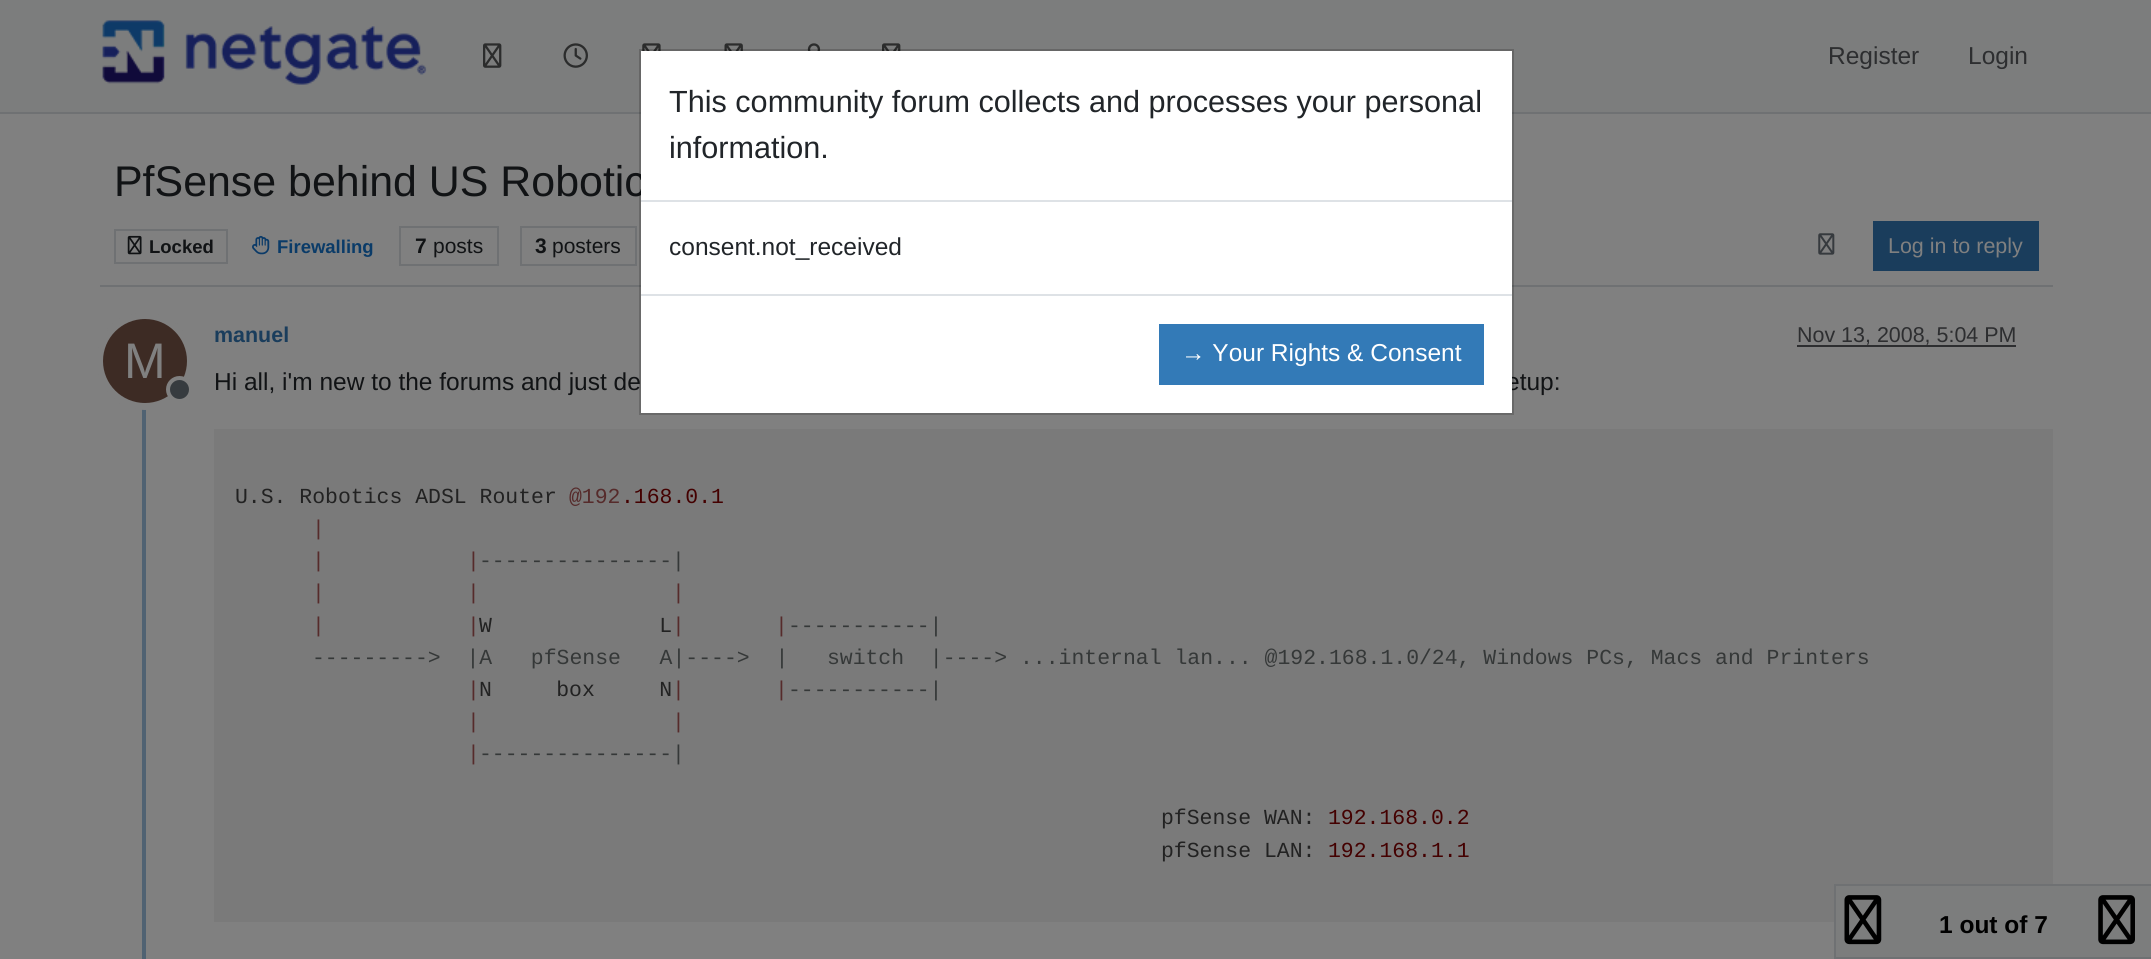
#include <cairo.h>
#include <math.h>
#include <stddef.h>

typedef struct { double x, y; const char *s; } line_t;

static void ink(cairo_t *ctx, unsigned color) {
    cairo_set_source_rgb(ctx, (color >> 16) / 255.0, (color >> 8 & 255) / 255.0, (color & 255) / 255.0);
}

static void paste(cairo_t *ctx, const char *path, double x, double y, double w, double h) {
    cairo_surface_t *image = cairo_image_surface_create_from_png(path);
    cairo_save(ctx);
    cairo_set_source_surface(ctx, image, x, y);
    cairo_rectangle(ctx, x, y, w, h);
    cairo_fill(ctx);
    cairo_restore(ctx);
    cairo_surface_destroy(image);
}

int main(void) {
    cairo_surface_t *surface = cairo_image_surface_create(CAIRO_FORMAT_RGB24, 2151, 959);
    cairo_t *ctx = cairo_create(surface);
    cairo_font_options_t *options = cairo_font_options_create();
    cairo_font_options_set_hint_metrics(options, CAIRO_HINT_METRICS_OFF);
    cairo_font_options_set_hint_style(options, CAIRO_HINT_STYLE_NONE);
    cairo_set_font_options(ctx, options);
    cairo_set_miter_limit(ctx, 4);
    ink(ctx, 0x808080);
    cairo_paint(ctx);
    ink(ctx, 0x7C7D7D);
    cairo_rectangle(ctx, 0, 0, 2151, 112);
    cairo_fill(ctx);
    ink(ctx, 0x6F7173);
    cairo_rectangle(ctx, 0, 112, 2151, 2);
    cairo_fill(ctx);
    paste(ctx, "media/1.png", 102, 20, 325, 65);
    paste(ctx, "media/2.png", 483, 43, 19, 25);
    paste(ctx, "media/3.png", 563, 43, 25, 25);
    paste(ctx, "media/4.png", 642, 43, 19, 8);
    paste(ctx, "media/5.png", 724, 43, 19, 8);
    paste(ctx, "media/6.png", 807, 43, 14, 8);
    paste(ctx, "media/7.png", 882, 43, 19, 8);
    cairo_select_font_face(ctx, "Liberation Sans", CAIRO_FONT_SLANT_NORMAL, CAIRO_FONT_WEIGHT_NORMAL);
    cairo_set_font_size(ctx, 24.5);
    ink(ctx, 0x2D2E30);
    cairo_move_to(ctx, 1828, 64);
    cairo_show_text(ctx, "Register");
    cairo_move_to(ctx, 1968, 64);
    cairo_show_text(ctx, "Login");
    ink(ctx, 0x6F7173);
    cairo_rectangle(ctx, 100, 285, 1953, 2);
    cairo_fill(ctx);
    cairo_set_font_size(ctx, 42.9);
    ink(ctx, 0x111315);
    cairo_move_to(ctx, 114, 196);
    cairo_show_text(ctx, "PfSense behind US Robotic");
    cairo_rectangle(ctx, 115, 230, 112, 33);
    ink(ctx, 0x6F7173);
    cairo_stroke(ctx);
    paste(ctx, "media/8.png", 127, 235, 15, 20);
    cairo_select_font_face(ctx, "Liberation Sans", CAIRO_FONT_SLANT_NORMAL, CAIRO_FONT_WEIGHT_BOLD);
    cairo_set_font_size(ctx, 18.5);
    ink(ctx, 0x111315);
    cairo_move_to(ctx, 149, 253);
    cairo_show_text(ctx, "Locked");
    paste(ctx, "media/9.png", 252, 235, 18, 20);
    ink(ctx, 0x0A3B68);
    cairo_move_to(ctx, 277, 253);
    cairo_show_text(ctx, "Firewalling");
    cairo_rectangle(ctx, 400, 227, 98, 38);
    ink(ctx, 0x6F7173);
    cairo_stroke(ctx);
    cairo_set_font_size(ctx, 21);
    ink(ctx, 0x111315);
    cairo_move_to(ctx, 415, 253);
    cairo_show_text(ctx, "7");
    cairo_select_font_face(ctx, "Liberation Sans", CAIRO_FONT_SLANT_NORMAL, CAIRO_FONT_WEIGHT_NORMAL);
    cairo_move_to(ctx, 433, 253);
    cairo_show_text(ctx, "posts");
    cairo_rectangle(ctx, 521, 227, 115, 38);
    ink(ctx, 0x6F7173);
    cairo_stroke(ctx);
    cairo_select_font_face(ctx, "Liberation Sans", CAIRO_FONT_SLANT_NORMAL, CAIRO_FONT_WEIGHT_BOLD);
    ink(ctx, 0x111315);
    cairo_move_to(ctx, 535, 253);
    cairo_show_text(ctx, "3");
    cairo_select_font_face(ctx, "Liberation Sans", CAIRO_FONT_SLANT_NORMAL, CAIRO_FONT_WEIGHT_NORMAL);
    cairo_move_to(ctx, 552, 253);
    cairo_show_text(ctx, "posters");
    paste(ctx, "media/10.png", 1818, 233, 17, 22);
    ink(ctx, 0x1A3D5C);
    cairo_rectangle(ctx, 1873, 221, 166, 50);
    cairo_fill(ctx);
    cairo_set_font_size(ctx, 21.45);
    ink(ctx, 0x808080);
    cairo_move_to(ctx, 1888, 253);
    cairo_show_text(ctx, "Log in to reply");
    ink(ctx, 0x506272);
    cairo_rectangle(ctx, 142, 315, 4, 644);
    cairo_fill(ctx);
    cairo_select_font_face(ctx, "Liberation Sans", CAIRO_FONT_SLANT_NORMAL, CAIRO_FONT_WEIGHT_BOLD);
    ink(ctx, 0x1A3D5C);
    cairo_move_to(ctx, 214, 342);
    cairo_show_text(ctx, "manuel");
    cairo_select_font_face(ctx, "Liberation Sans", CAIRO_FONT_SLANT_NORMAL, CAIRO_FONT_WEIGHT_NORMAL);
    ink(ctx, 0x2D2E30);
    cairo_move_to(ctx, 1797, 342);
    cairo_show_text(ctx, "Nov 13, 2008, 5:04 PM");
    cairo_rectangle(ctx, 1797, 345, 219, 2);
    cairo_fill(ctx);
    cairo_arc(ctx, 145, 361, 45.5, 0, 2 * M_PI);
    ink(ctx, 0x808080);
    cairo_set_line_width(ctx, 7);
    cairo_stroke(ctx);
    ink(ctx, 0x3D2B24);
    cairo_arc(ctx, 145, 361, 42, 0, 2 * M_PI);
    cairo_fill(ctx);
    cairo_set_font_size(ctx, 50);
    ink(ctx, 0x808080);
    cairo_move_to(ctx, 124, 378);
    cairo_show_text(ctx, "M");
    ink(ctx, 0x363B3F);
    cairo_new_path(ctx);
    cairo_arc(ctx, 179.5, 389.5, 11.5, 0, 2 * M_PI);
    cairo_fill_preserve(ctx);
    ink(ctx, 0x808080);
    cairo_set_line_width(ctx, 4);
    cairo_stroke(ctx);
    cairo_set_font_size(ctx, 24.5);
    ink(ctx, 0x111315);
    cairo_move_to(ctx, 214, 390);
    cairo_show_text(ctx, "Hi all, i'm new to the forums and just de");
    cairo_move_to(ctx, 1506, 390);
    cairo_show_text(ctx, "etup:");
    ink(ctx, 0x7A7A7A);
    cairo_rectangle(ctx, 214, 429, 1839, 493);
    cairo_fill(ctx);
    cairo_select_font_face(ctx, "Liberation Mono", CAIRO_FONT_SLANT_NORMAL, CAIRO_FONT_WEIGHT_NORMAL);
    cairo_set_font_size(ctx, 21.45);
    ink(ctx, 0x222222);
    cairo_move_to(ctx, 235, 503);
    cairo_show_text(ctx, "U.S. Robotics ADSL Router");
    ink(ctx, 0x562B2B);
    cairo_move_to(ctx, 569, 503);
    cairo_show_text(ctx, "@192");
    ink(ctx, 0x440000);
    cairo_move_to(ctx, 621, 503);
    cairo_show_text(ctx, ".168.0.1");
    ink(ctx, 0x562B2B);
    {
        static const line_t items[] = {
            {312, 535, "|"},
            {312, 567, "|"},
            {467, 567, "|"},
        };
        for (size_t i = 0; i < sizeof items / sizeof *items; i++) {
            cairo_move_to(ctx, items[i].x, items[i].y);
            cairo_show_text(ctx, items[i].s);
        }
    }
    ink(ctx, 0x353838);
    cairo_move_to(ctx, 479, 567);
    cairo_show_text(ctx, "---------------|");
    ink(ctx, 0x562B2B);
    {
        static const line_t items[] = {
            {312, 599, "|"},
            {467, 599, "|"},
            {672, 599, "|"},
            {312, 632, "|"},
            {467, 632, "|"},
        };
        for (size_t i = 0; i < sizeof items / sizeof *items; i++) {
            cairo_move_to(ctx, items[i].x, items[i].y);
            cairo_show_text(ctx, items[i].s);
        }
    }
    ink(ctx, 0x222222);
    cairo_move_to(ctx, 479, 632);
    cairo_show_text(ctx, "W             L");
    ink(ctx, 0x562B2B);
    cairo_move_to(ctx, 672, 632);
    cairo_show_text(ctx, "|");
    cairo_move_to(ctx, 775, 632);
    cairo_show_text(ctx, "|");
    ink(ctx, 0x353838);
    cairo_move_to(ctx, 788, 632);
    cairo_show_text(ctx, "-----------|");
    cairo_move_to(ctx, 312, 664);
    cairo_show_text(ctx, "--------->  |A   pfSense   A|---->  |   switch  |----> ...internal lan... @192.168.1.0/24, Windows PCs, Macs and Printers");
    ink(ctx, 0x562B2B);
    cairo_move_to(ctx, 467, 696);
    cairo_show_text(ctx, "|");
    ink(ctx, 0x222222);
    cairo_move_to(ctx, 479, 696);
    cairo_show_text(ctx, "N     box     N");
    ink(ctx, 0x562B2B);
    cairo_move_to(ctx, 672, 696);
    cairo_show_text(ctx, "|");
    cairo_move_to(ctx, 775, 696);
    cairo_show_text(ctx, "|");
    ink(ctx, 0x353838);
    cairo_move_to(ctx, 788, 696);
    cairo_show_text(ctx, "-----------|");
    ink(ctx, 0x562B2B);
    {
        static const line_t items[] = {
            {467, 728, "|"},
            {672, 728, "|"},
            {467, 760, "|"},
        };
        for (size_t i = 0; i < sizeof items / sizeof *items; i++) {
            cairo_move_to(ctx, items[i].x, items[i].y);
            cairo_show_text(ctx, items[i].s);
        }
    }
    ink(ctx, 0x353838);
    cairo_move_to(ctx, 479, 760);
    cairo_show_text(ctx, "---------------|");
    ink(ctx, 0x222222);
    cairo_move_to(ctx, 1161, 824);
    cairo_show_text(ctx, "pfSense WAN:");
    ink(ctx, 0x440000);
    cairo_move_to(ctx, 1328, 824);
    cairo_show_text(ctx, "192.168.0.2");
    ink(ctx, 0x222222);
    cairo_move_to(ctx, 1161, 857);
    cairo_show_text(ctx, "pfSense LAN:");
    ink(ctx, 0x440000);
    cairo_move_to(ctx, 1328, 857);
    cairo_show_text(ctx, "192.168.1.1");
    ink(ctx, 0x7C7D7D);
    cairo_rectangle(ctx, 1835, 885, 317, 73);
    cairo_fill_preserve(ctx);
    ink(ctx, 0x6F7173);
    cairo_set_line_width(ctx, 2);
    cairo_stroke(ctx);
    paste(ctx, "media/11.png", 1844, 895, 38, 50);
    cairo_select_font_face(ctx, "Liberation Sans", CAIRO_FONT_SLANT_NORMAL, CAIRO_FONT_WEIGHT_BOLD);
    cairo_set_font_size(ctx, 24.5);
    ink(ctx, 0x000000);
    cairo_move_to(ctx, 1939, 933);
    cairo_show_text(ctx, "1 out of 7");
    paste(ctx, "media/12.png", 2098, 895, 37, 50);
    ink(ctx, 0xFFFFFF);
    cairo_rectangle(ctx, 641, 51, 871, 362);
    cairo_fill(ctx);
    cairo_rectangle(ctx, 640, 50, 873, 364);
    cairo_set_source_rgba(ctx, 0, 0, 0, 0.18);
    cairo_stroke(ctx);
    ink(ctx, 0xDEE2E6);
    cairo_rectangle(ctx, 641, 200, 871, 2);
    cairo_fill(ctx);
    cairo_select_font_face(ctx, "Liberation Sans", CAIRO_FONT_SLANT_NORMAL, CAIRO_FONT_WEIGHT_NORMAL);
    cairo_set_font_size(ctx, 30.6);
    ink(ctx, 0x212529);
    cairo_move_to(ctx, 669, 112);
    cairo_show_text(ctx, "This community forum collects and processes your personal");
    cairo_move_to(ctx, 669, 158);
    cairo_show_text(ctx, "information.");
    cairo_set_font_size(ctx, 24.5);
    cairo_move_to(ctx, 669, 255);
    cairo_show_text(ctx, "consent.not_received");
    ink(ctx, 0xDEE2E6);
    cairo_rectangle(ctx, 641, 294, 871, 2);
    cairo_fill(ctx);
    ink(ctx, 0x337AB7);
    cairo_rectangle(ctx, 1159, 324, 325, 61);
    cairo_fill(ctx);
    ink(ctx, 0xFFFFFF);
    cairo_move_to(ctx, 1181, 361);
    cairo_show_text(ctx, "→ Your Rights & Consent");
    cairo_surface_write_to_png(surface, "image.png");
    cairo_font_options_destroy(options);
    cairo_destroy(ctx);
    cairo_surface_destroy(surface);
    return 0;
}
